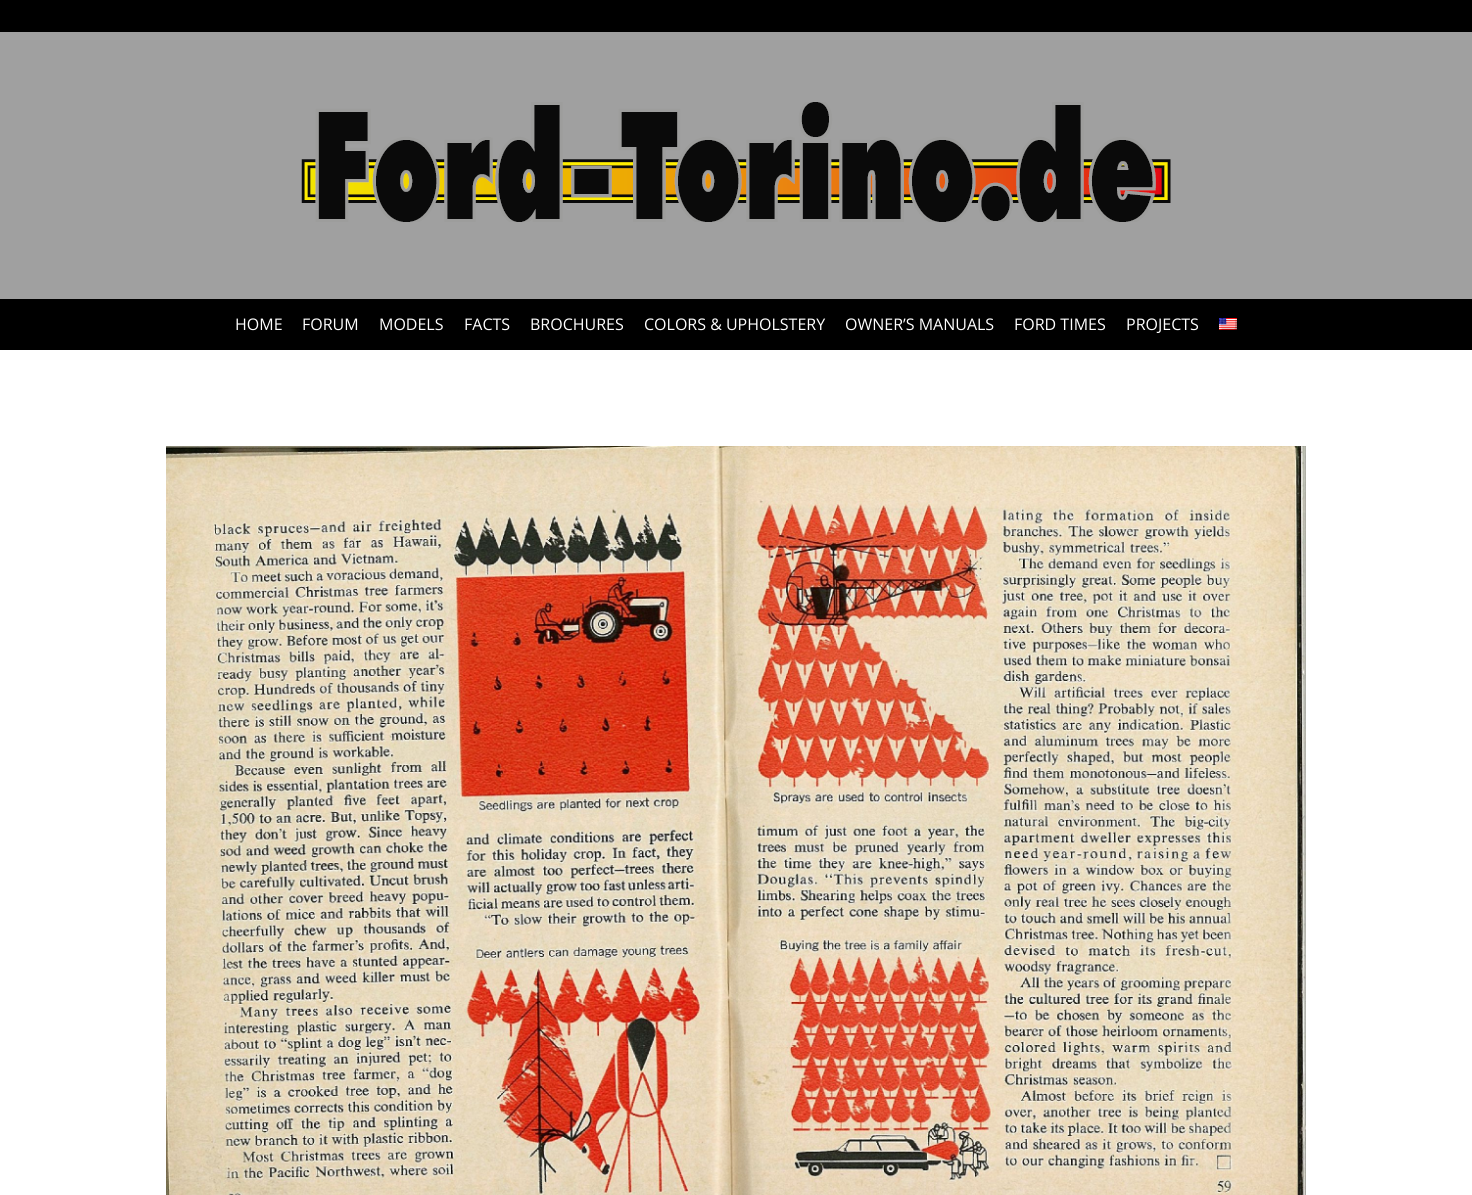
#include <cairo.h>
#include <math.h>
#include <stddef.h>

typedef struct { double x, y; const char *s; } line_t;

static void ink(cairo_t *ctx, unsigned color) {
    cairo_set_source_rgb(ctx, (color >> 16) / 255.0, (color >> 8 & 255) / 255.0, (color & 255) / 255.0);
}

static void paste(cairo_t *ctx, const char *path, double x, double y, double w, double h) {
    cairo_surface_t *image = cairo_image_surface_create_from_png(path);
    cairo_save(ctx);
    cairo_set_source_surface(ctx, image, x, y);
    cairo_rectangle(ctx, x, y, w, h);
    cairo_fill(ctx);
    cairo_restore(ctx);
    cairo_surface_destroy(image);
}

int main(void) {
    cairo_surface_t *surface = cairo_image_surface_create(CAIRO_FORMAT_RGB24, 1472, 1195);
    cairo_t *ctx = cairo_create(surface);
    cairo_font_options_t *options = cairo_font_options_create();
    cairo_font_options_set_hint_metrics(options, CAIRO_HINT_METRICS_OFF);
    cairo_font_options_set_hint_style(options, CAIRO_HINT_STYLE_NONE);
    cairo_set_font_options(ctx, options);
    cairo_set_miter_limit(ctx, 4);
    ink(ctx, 0x000000);
    cairo_paint(ctx);
    ink(ctx, 0xA0A0A0);
    cairo_rectangle(ctx, 0, 32, 1472, 267);
    cairo_fill(ctx);
    paste(ctx, "media/1.png", 301, 102, 870, 120);
    cairo_select_font_face(ctx, "Open Sans", CAIRO_FONT_SLANT_NORMAL, CAIRO_FONT_WEIGHT_NORMAL);
    cairo_set_font_size(ctx, 16);
    ink(ctx, 0xFFFFFF);
    {
        static const line_t items[] = {
            {235, 330, "HOME"},
            {302, 330, "FORUM"},
            {379, 330, "MODELS"},
            {464, 330, "FACTS"},
            {530, 330, "BROCHURES"},
            {644, 330, "COLORS & UPHOLSTERY"},
            {845, 330, "OWNER’S MANUALS"},
            {1014, 330, "FORD TIMES"},
            {1126, 330, "PROJECTS"},
        };
        for (size_t i = 0; i < sizeof items / sizeof *items; i++) {
            cairo_move_to(ctx, items[i].x, items[i].y);
            cairo_show_text(ctx, items[i].s);
        }
    }
    paste(ctx, "media/2.png", 1219, 318, 18, 12);
    cairo_rectangle(ctx, 0, 350, 1472, 845);
    cairo_fill(ctx);
    paste(ctx, "media/3.png", 166, 446, 1140, 749);
    cairo_surface_write_to_png(surface, "image.png");
    cairo_font_options_destroy(options);
    cairo_destroy(ctx);
    cairo_surface_destroy(surface);
    return 0;
}
